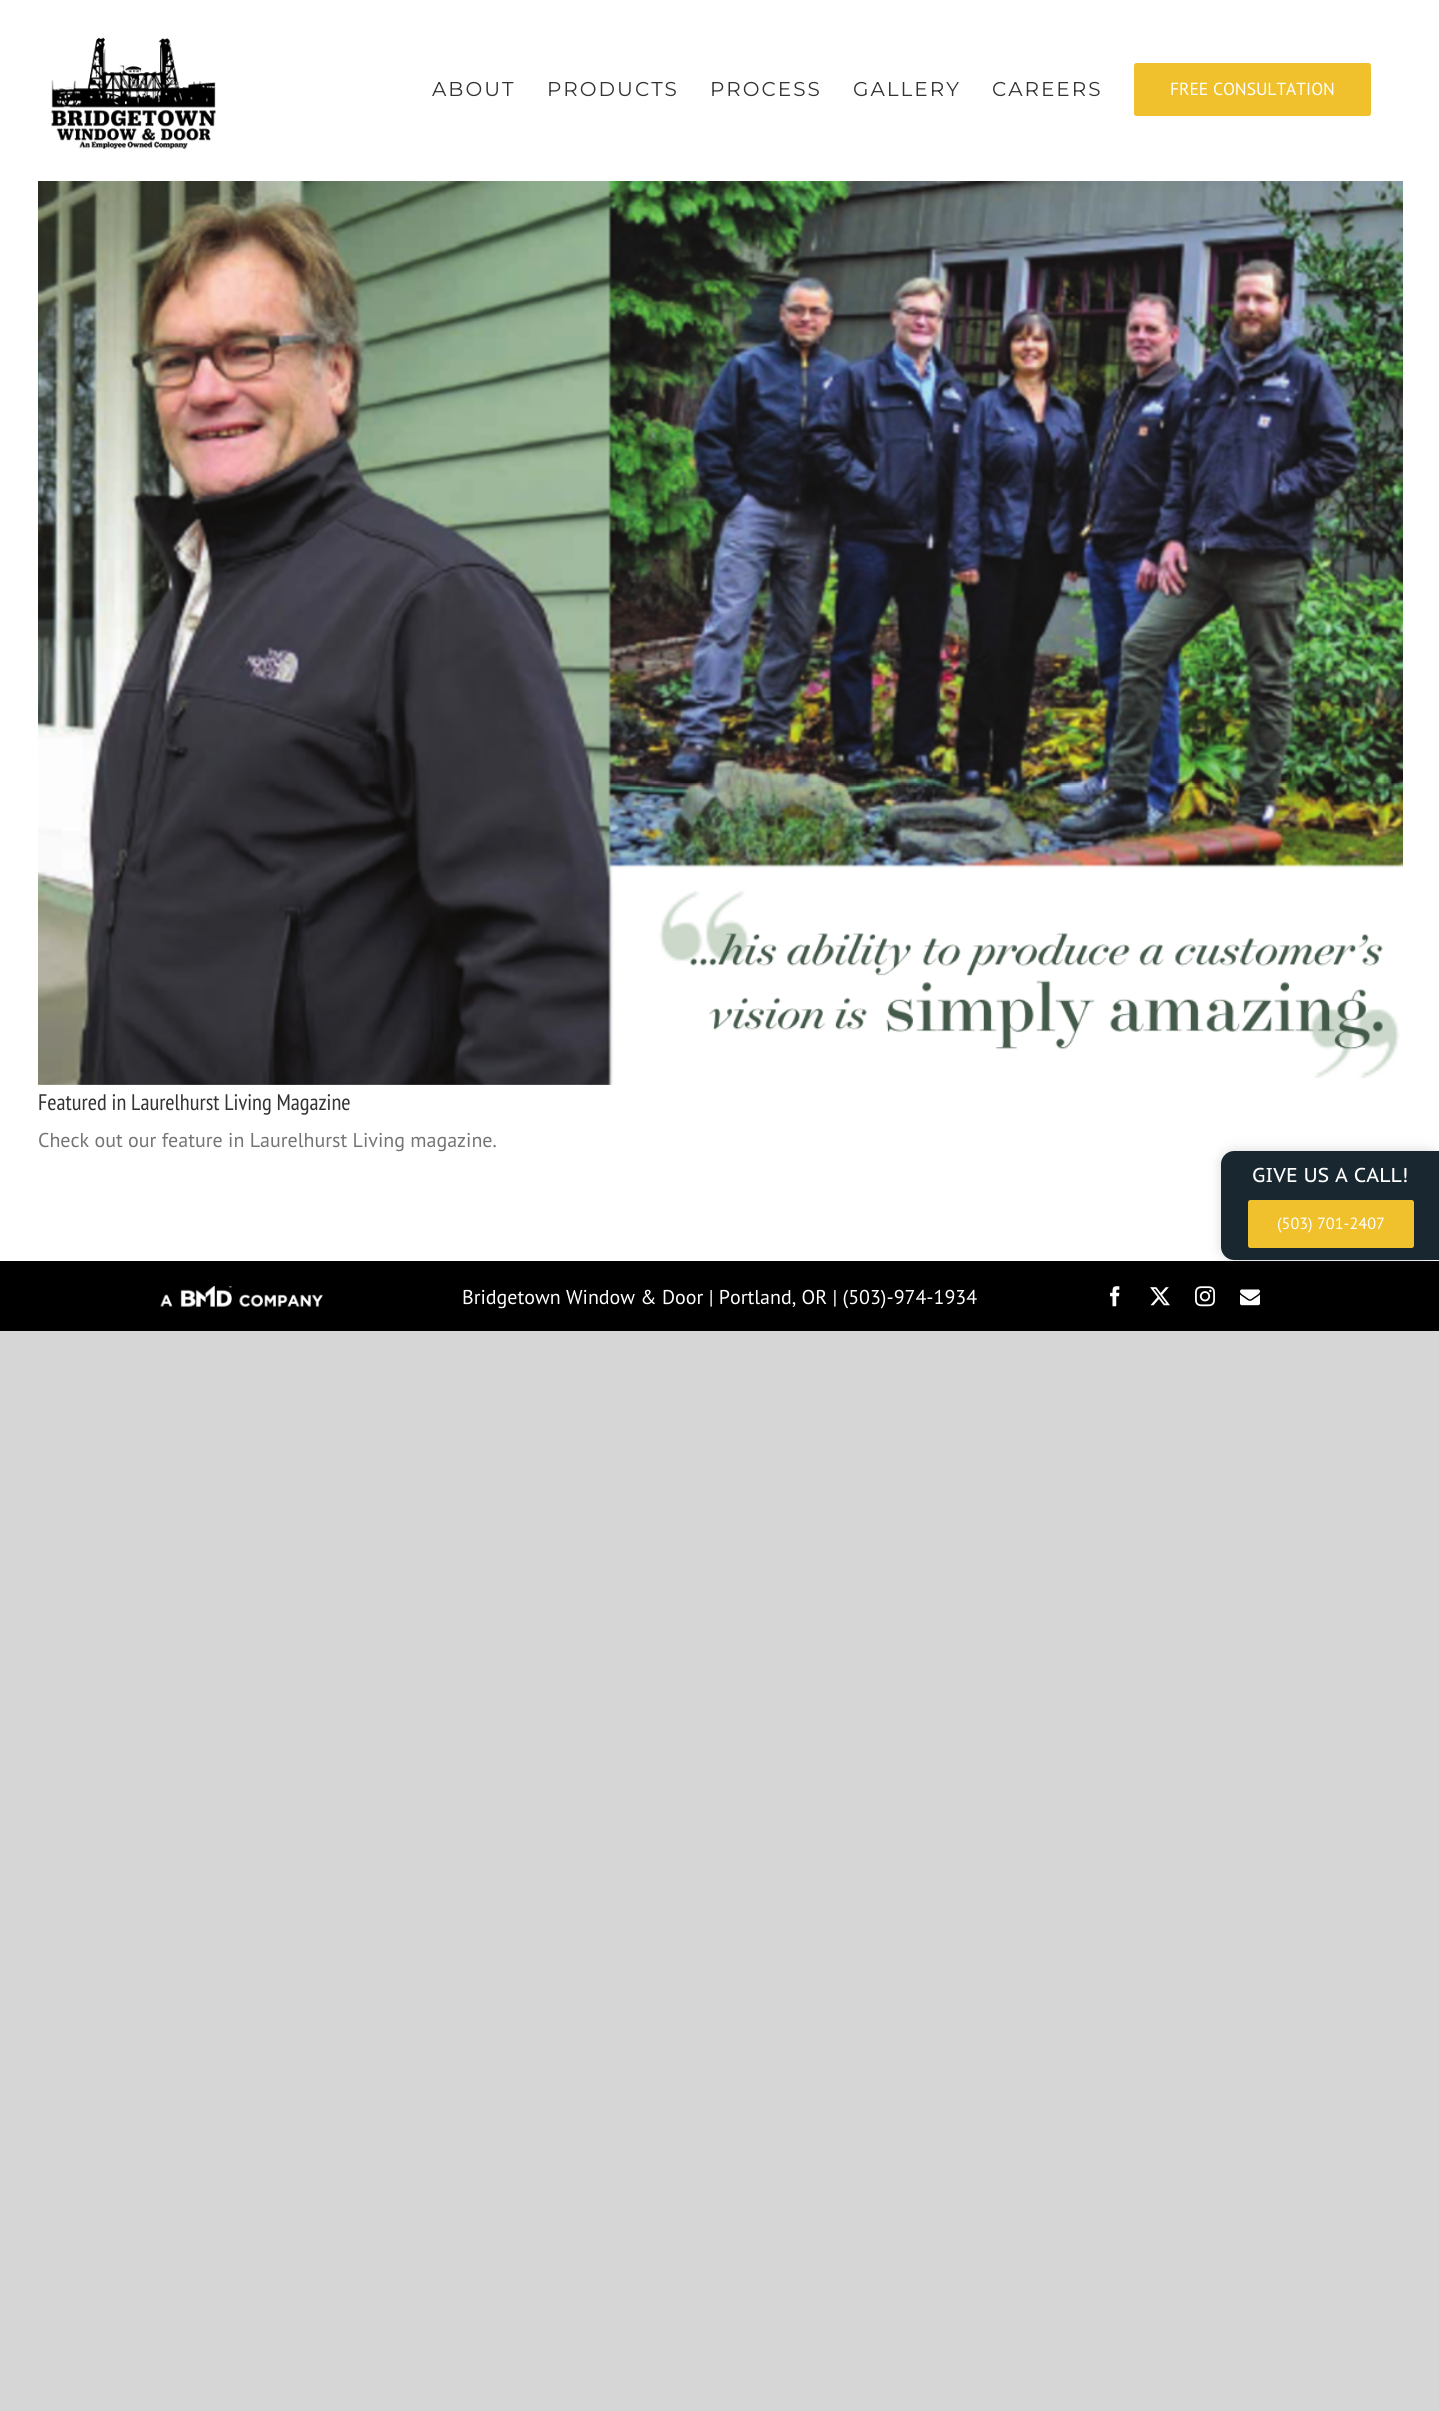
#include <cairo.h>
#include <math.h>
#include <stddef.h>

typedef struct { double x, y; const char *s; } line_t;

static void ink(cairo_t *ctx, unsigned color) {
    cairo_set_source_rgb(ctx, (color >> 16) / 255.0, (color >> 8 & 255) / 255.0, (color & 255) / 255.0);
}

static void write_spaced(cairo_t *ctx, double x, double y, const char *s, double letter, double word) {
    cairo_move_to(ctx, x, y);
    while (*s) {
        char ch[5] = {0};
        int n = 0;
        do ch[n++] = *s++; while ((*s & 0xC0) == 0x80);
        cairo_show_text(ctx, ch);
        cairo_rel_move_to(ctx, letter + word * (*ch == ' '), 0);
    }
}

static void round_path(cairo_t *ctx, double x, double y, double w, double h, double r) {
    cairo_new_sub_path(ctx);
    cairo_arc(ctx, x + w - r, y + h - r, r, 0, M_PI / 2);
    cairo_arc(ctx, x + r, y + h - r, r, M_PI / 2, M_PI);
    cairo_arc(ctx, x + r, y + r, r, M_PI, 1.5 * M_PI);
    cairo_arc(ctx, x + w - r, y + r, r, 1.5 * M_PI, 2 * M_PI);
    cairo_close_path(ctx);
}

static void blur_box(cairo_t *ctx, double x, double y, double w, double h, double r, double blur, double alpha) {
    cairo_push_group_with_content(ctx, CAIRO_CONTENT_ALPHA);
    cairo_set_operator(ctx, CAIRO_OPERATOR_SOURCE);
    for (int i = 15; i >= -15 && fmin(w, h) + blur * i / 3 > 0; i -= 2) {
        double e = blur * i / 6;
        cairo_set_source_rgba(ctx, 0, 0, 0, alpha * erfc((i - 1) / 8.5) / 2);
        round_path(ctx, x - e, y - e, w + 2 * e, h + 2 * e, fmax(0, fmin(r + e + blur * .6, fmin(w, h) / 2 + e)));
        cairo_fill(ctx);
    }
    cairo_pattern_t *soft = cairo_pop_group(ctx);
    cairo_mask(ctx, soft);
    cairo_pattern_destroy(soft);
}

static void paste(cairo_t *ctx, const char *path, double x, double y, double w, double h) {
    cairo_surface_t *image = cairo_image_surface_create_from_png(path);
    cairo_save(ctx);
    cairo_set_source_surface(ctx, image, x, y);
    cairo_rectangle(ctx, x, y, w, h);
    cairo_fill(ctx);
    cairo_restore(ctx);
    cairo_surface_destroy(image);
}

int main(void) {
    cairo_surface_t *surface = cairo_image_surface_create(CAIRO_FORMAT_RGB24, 1439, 2411);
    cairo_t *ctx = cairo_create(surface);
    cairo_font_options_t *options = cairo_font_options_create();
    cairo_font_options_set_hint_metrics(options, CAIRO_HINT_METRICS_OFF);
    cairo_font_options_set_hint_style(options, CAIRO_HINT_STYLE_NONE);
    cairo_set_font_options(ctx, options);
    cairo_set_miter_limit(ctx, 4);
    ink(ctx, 0xD7D6D6);
    cairo_paint(ctx);
    ink(ctx, 0xFFFFFF);
    cairo_rectangle(ctx, 0, 0, 1439, 1261);
    cairo_fill(ctx);
    paste(ctx, "media/1.png", 51, 37, 165, 113);
    cairo_select_font_face(ctx, "Montserrat Thin", CAIRO_FONT_SLANT_NORMAL, CAIRO_FONT_WEIGHT_NORMAL);
    cairo_set_font_size(ctx, 20);
    ink(ctx, 0x333333);
    {
        static const line_t items[] = {
            {432, 96, "ABOUT"},
            {547, 96, "PRODUCTS"},
            {710, 96, "PROCESS"},
            {853, 96, "GALLERY"},
            {992, 96, "CAREERS"},
        };
        for (size_t i = 0; i < sizeof items / sizeof *items; i++) {
            write_spaced(ctx, items[i].x, items[i].y, items[i].s, 2, 0);
        }
    }
    ink(ctx, 0xF0C12C);
    round_path(ctx, 1134, 63, 237, 53, 2.5);
    cairo_fill(ctx);
    cairo_select_font_face(ctx, "PT Sans", CAIRO_FONT_SLANT_NORMAL, CAIRO_FONT_WEIGHT_NORMAL);
    cairo_set_font_size(ctx, 17.5);
    ink(ctx, 0xFFFFFF);
    cairo_move_to(ctx, 1170, 95);
    cairo_show_text(ctx, "FREE CONSULTATION");
    paste(ctx, "media/2.png", 38, 181, 1365, 904);
    cairo_select_font_face(ctx, "PT Sans Narrow", CAIRO_FONT_SLANT_NORMAL, CAIRO_FONT_WEIGHT_NORMAL);
    cairo_set_font_size(ctx, 22.5);
    ink(ctx, 0x333333);
    cairo_move_to(ctx, 38, 1110);
    cairo_show_text(ctx, "Featured in Laurelhurst Living Magazine");
    cairo_select_font_face(ctx, "PT Sans", CAIRO_FONT_SLANT_NORMAL, CAIRO_FONT_WEIGHT_NORMAL);
    cairo_set_font_size(ctx, 20);
    ink(ctx, 0x747474);
    cairo_move_to(ctx, 38, 1147);
    cairo_show_text(ctx, "Check out our feature in Laurelhurst Living magazine.");
    ink(ctx, 0x000000);
    cairo_rectangle(ctx, 0, 1261, 1439, 70);
    cairo_fill(ctx);
    paste(ctx, "media/3.png", 160, 1285, 163, 22);
    ink(ctx, 0xFFFFFF);
    cairo_move_to(ctx, 462, 1304);
    cairo_show_text(ctx, "Bridgetown Window & Door | Portland, OR | (503)-974-1934");
    paste(ctx, "media/4.png", 1110, 1286, 10, 21);
    paste(ctx, "media/5.png", 1150, 1287, 20, 19);
    paste(ctx, "media/6.png", 1195, 1286, 20, 21);
    paste(ctx, "media/7.png", 1240, 1289, 20, 17);
    ink(ctx, 0x333333);
    blur_box(ctx, 1221, 1151, 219, 109, 13, 6, 0.2);
    ink(ctx, 0x192730);
    cairo_new_path(ctx);
    cairo_move_to(ctx, 1234, 1151);
    cairo_line_to(ctx, 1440, 1151);
    cairo_line_to(ctx, 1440, 1260);
    cairo_line_to(ctx, 1234, 1260);
    cairo_curve_to(ctx, 1227, 1260, 1221, 1254, 1221, 1247);
    cairo_line_to(ctx, 1221, 1164);
    cairo_curve_to(ctx, 1221, 1157, 1227, 1151, 1234, 1151);
    cairo_close_path(ctx);
    cairo_fill(ctx);
    cairo_select_font_face(ctx, "PT Sans Caption", CAIRO_FONT_SLANT_NORMAL, CAIRO_FONT_WEIGHT_NORMAL);
    ink(ctx, 0xFFFFFF);
    cairo_move_to(ctx, 1252, 1182);
    cairo_show_text(ctx, "GIVE US A CALL!");
    ink(ctx, 0xF0C12C);
    round_path(ctx, 1248, 1200, 166, 48, 2.5);
    cairo_fill(ctx);
    cairo_select_font_face(ctx, "PT Sans", CAIRO_FONT_SLANT_NORMAL, CAIRO_FONT_WEIGHT_NORMAL);
    cairo_set_font_size(ctx, 16.25);
    ink(ctx, 0xFFFFFF);
    cairo_move_to(ctx, 1277, 1229);
    cairo_show_text(ctx, "(503) 701-2407");
    cairo_surface_write_to_png(surface, "image.png");
    cairo_font_options_destroy(options);
    cairo_destroy(ctx);
    cairo_surface_destroy(surface);
    return 0;
}
